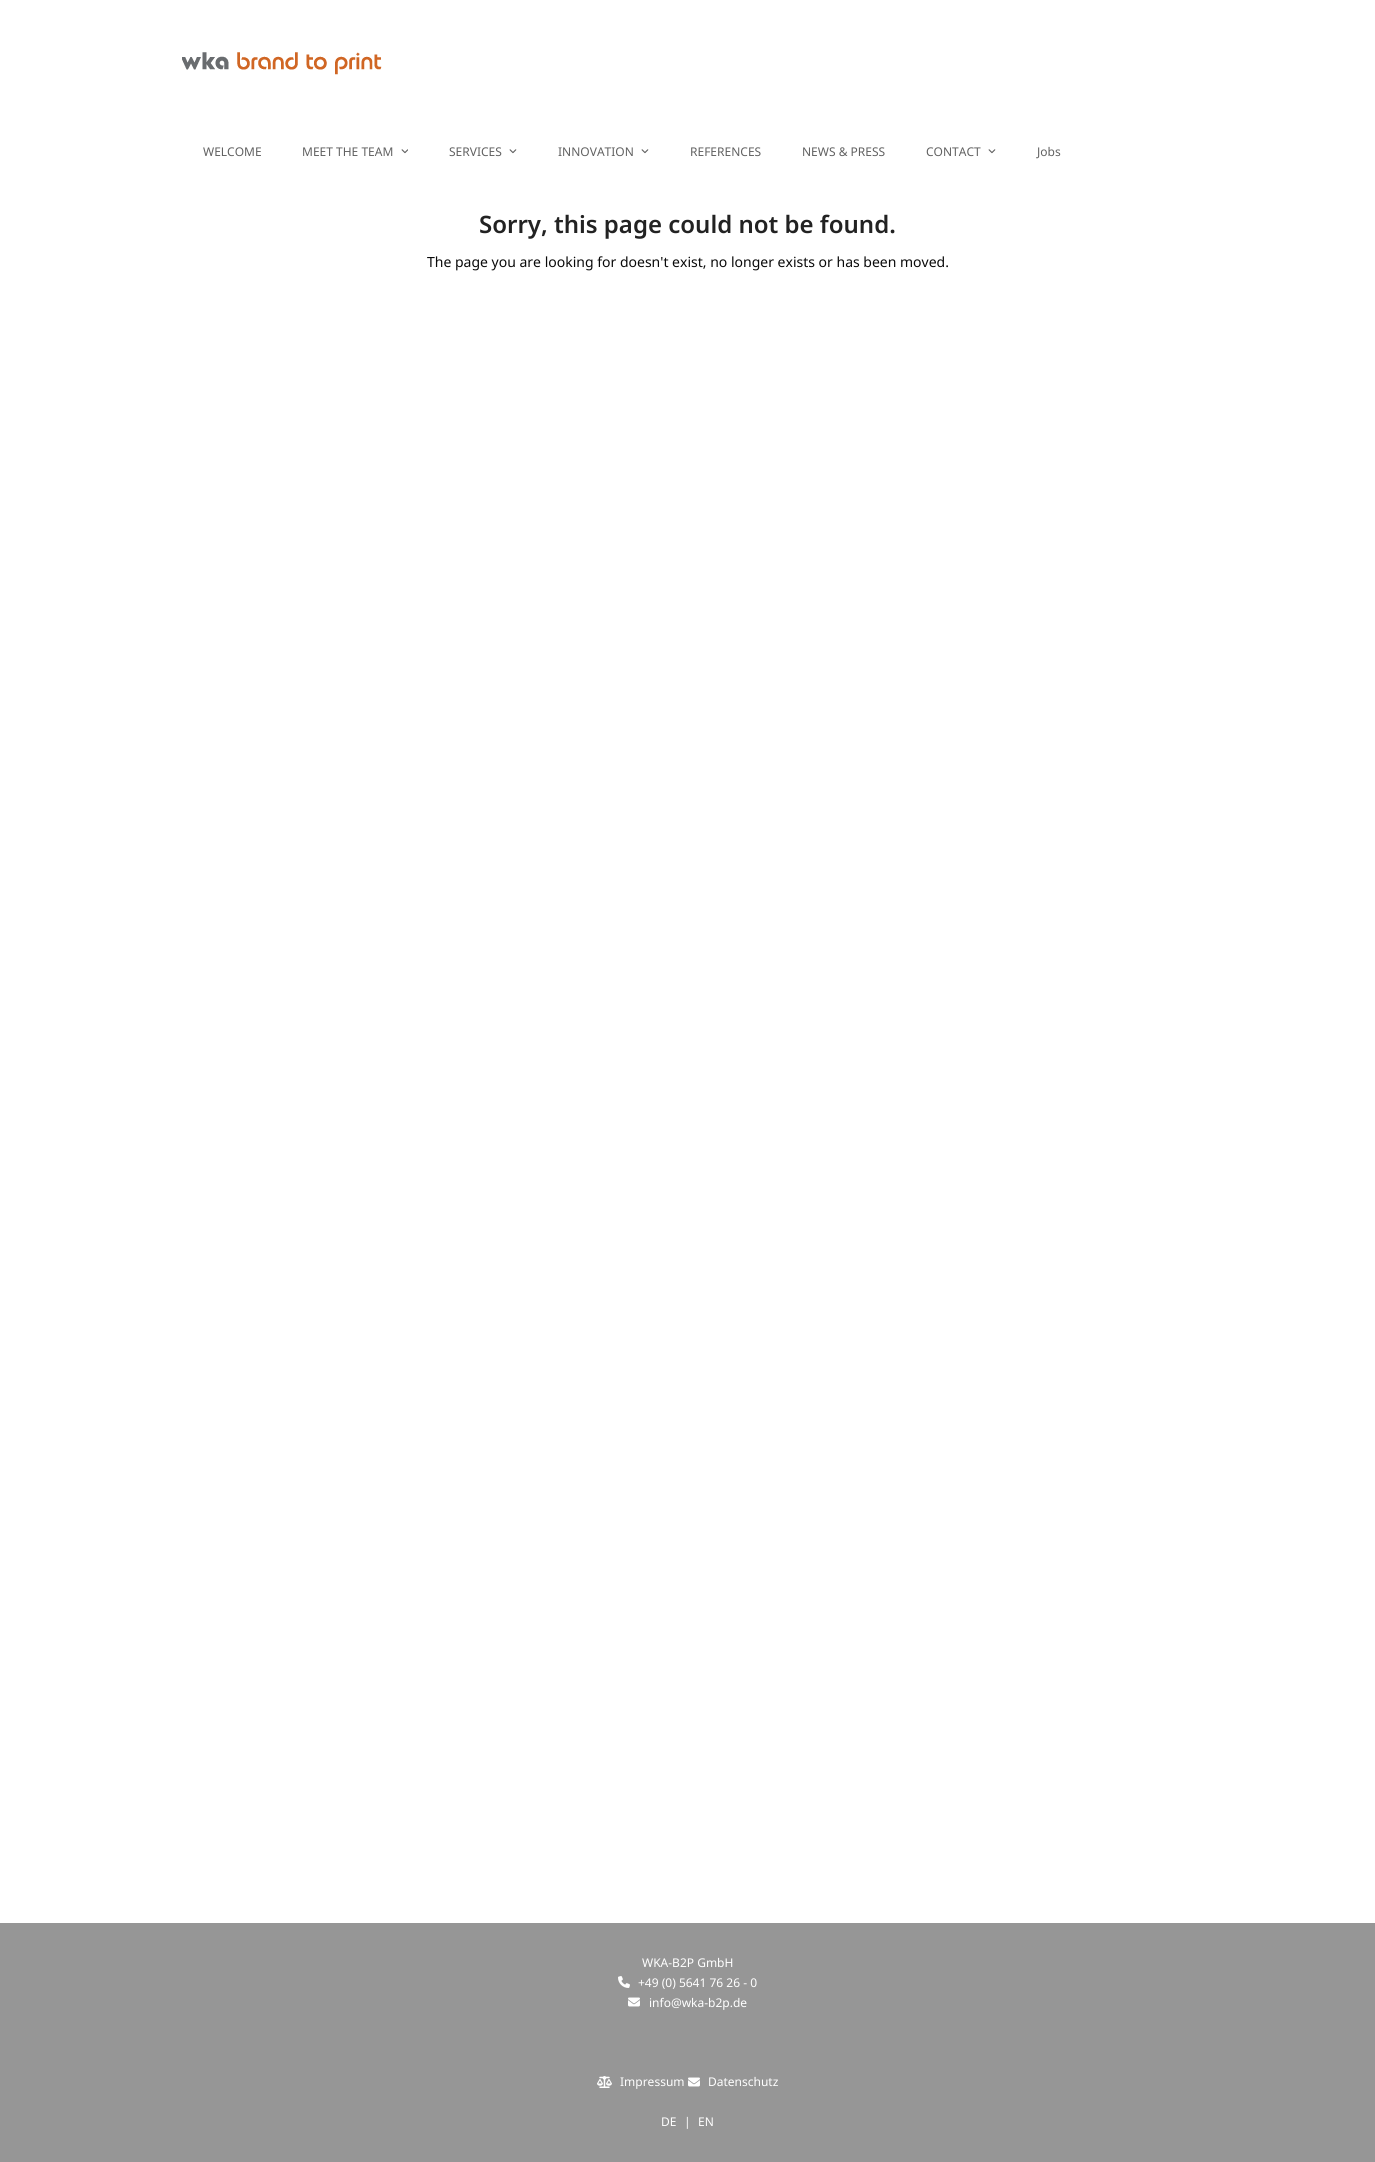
#include <cairo.h>
#include <math.h>
#include <stddef.h>

typedef struct { double x, y; const char *s; } line_t;

static void ink(cairo_t *ctx, unsigned color) {
    cairo_set_source_rgb(ctx, (color >> 16) / 255.0, (color >> 8 & 255) / 255.0, (color & 255) / 255.0);
}

static void paste(cairo_t *ctx, const char *path, double x, double y, double w, double h) {
    cairo_surface_t *image = cairo_image_surface_create_from_png(path);
    cairo_save(ctx);
    cairo_set_source_surface(ctx, image, x, y);
    cairo_rectangle(ctx, x, y, w, h);
    cairo_fill(ctx);
    cairo_restore(ctx);
    cairo_surface_destroy(image);
}

int main(void) {
    cairo_surface_t *surface = cairo_image_surface_create(CAIRO_FORMAT_RGB24, 1375, 2162);
    cairo_t *ctx = cairo_create(surface);
    cairo_font_options_t *options = cairo_font_options_create();
    cairo_font_options_set_hint_metrics(options, CAIRO_HINT_METRICS_OFF);
    cairo_font_options_set_hint_style(options, CAIRO_HINT_STYLE_NONE);
    cairo_set_font_options(ctx, options);
    cairo_set_miter_limit(ctx, 4);
    ink(ctx, 0xFFFFFF);
    cairo_paint(ctx);
    paste(ctx, "media/1.png", 182, 52, 200, 23);
    cairo_select_font_face(ctx, "Noto Sans", CAIRO_FONT_SLANT_NORMAL, CAIRO_FONT_WEIGHT_NORMAL);
    cairo_set_font_size(ctx, 12);
    ink(ctx, 0x616161);
    cairo_move_to(ctx, 203, 156);
    cairo_show_text(ctx, "WELCOME");
    cairo_move_to(ctx, 302, 156);
    cairo_show_text(ctx, "MEET THE TEAM");
    paste(ctx, "media/2.png", 401, 149, 7, 5);
    cairo_move_to(ctx, 449, 156);
    cairo_show_text(ctx, "SERVICES");
    paste(ctx, "media/3.png", 509, 149, 8, 5);
    cairo_move_to(ctx, 558, 156);
    cairo_show_text(ctx, "INNOVATION");
    paste(ctx, "media/3.png", 641, 149, 8, 5);
    {
        static const line_t items[] = {
            {690, 156, "REFERENCES"},
            {802, 156, "NEWS & PRESS"},
            {926, 156, "CONTACT"},
        };
        for (size_t i = 0; i < sizeof items / sizeof *items; i++) {
            cairo_move_to(ctx, items[i].x, items[i].y);
            cairo_show_text(ctx, items[i].s);
        }
    }
    paste(ctx, "media/3.png", 988, 149, 8, 5);
    cairo_move_to(ctx, 1037, 156);
    cairo_show_text(ctx, "Jobs");
    cairo_select_font_face(ctx, "Noto Sans SemiBold", CAIRO_FONT_SLANT_NORMAL, CAIRO_FONT_WEIGHT_NORMAL);
    cairo_set_font_size(ctx, 24);
    ink(ctx, 0x222222);
    cairo_move_to(ctx, 479, 233);
    cairo_show_text(ctx, "Sorry, this page could not be found.");
    cairo_select_font_face(ctx, "Noto Sans", CAIRO_FONT_SLANT_NORMAL, CAIRO_FONT_WEIGHT_NORMAL);
    cairo_set_font_size(ctx, 14);
    ink(ctx, 0x0A0A0A);
    cairo_move_to(ctx, 427, 267);
    cairo_show_text(ctx, "The page you are looking for doesn't exist, no longer exists or has been moved.");
    ink(ctx, 0x969696);
    cairo_rectangle(ctx, 0, 1923, 1375, 239);
    cairo_fill(ctx);
    cairo_set_font_size(ctx, 12);
    ink(ctx, 0xFFFFFF);
    cairo_move_to(ctx, 642, 1967);
    cairo_show_text(ctx, "WKA-B2P GmbH");
    paste(ctx, "media/4.png", 618, 1976, 12, 12);
    cairo_move_to(ctx, 638, 1987);
    cairo_show_text(ctx, "+49 (0) 5641 76 26 - 0");
    paste(ctx, "media/5.png", 628, 1997, 12, 10);
    cairo_move_to(ctx, 649, 2007);
    cairo_show_text(ctx, "info@wka-b2p.de");
    paste(ctx, "media/6.png", 597, 2076, 15, 12);
    cairo_move_to(ctx, 620, 2086);
    cairo_show_text(ctx, "Impressum");
    paste(ctx, "media/5.png", 688, 2077, 12, 10);
    {
        static const line_t items[] = {
            {708, 2086, "Datenschutz"},
            {661, 2126, "DE"},
            {684, 2126, "|"},
            {698, 2126, "EN"},
        };
        for (size_t i = 0; i < sizeof items / sizeof *items; i++) {
            cairo_move_to(ctx, items[i].x, items[i].y);
            cairo_show_text(ctx, items[i].s);
        }
    }
    cairo_surface_write_to_png(surface, "image.png");
    cairo_font_options_destroy(options);
    cairo_destroy(ctx);
    cairo_surface_destroy(surface);
    return 0;
}
